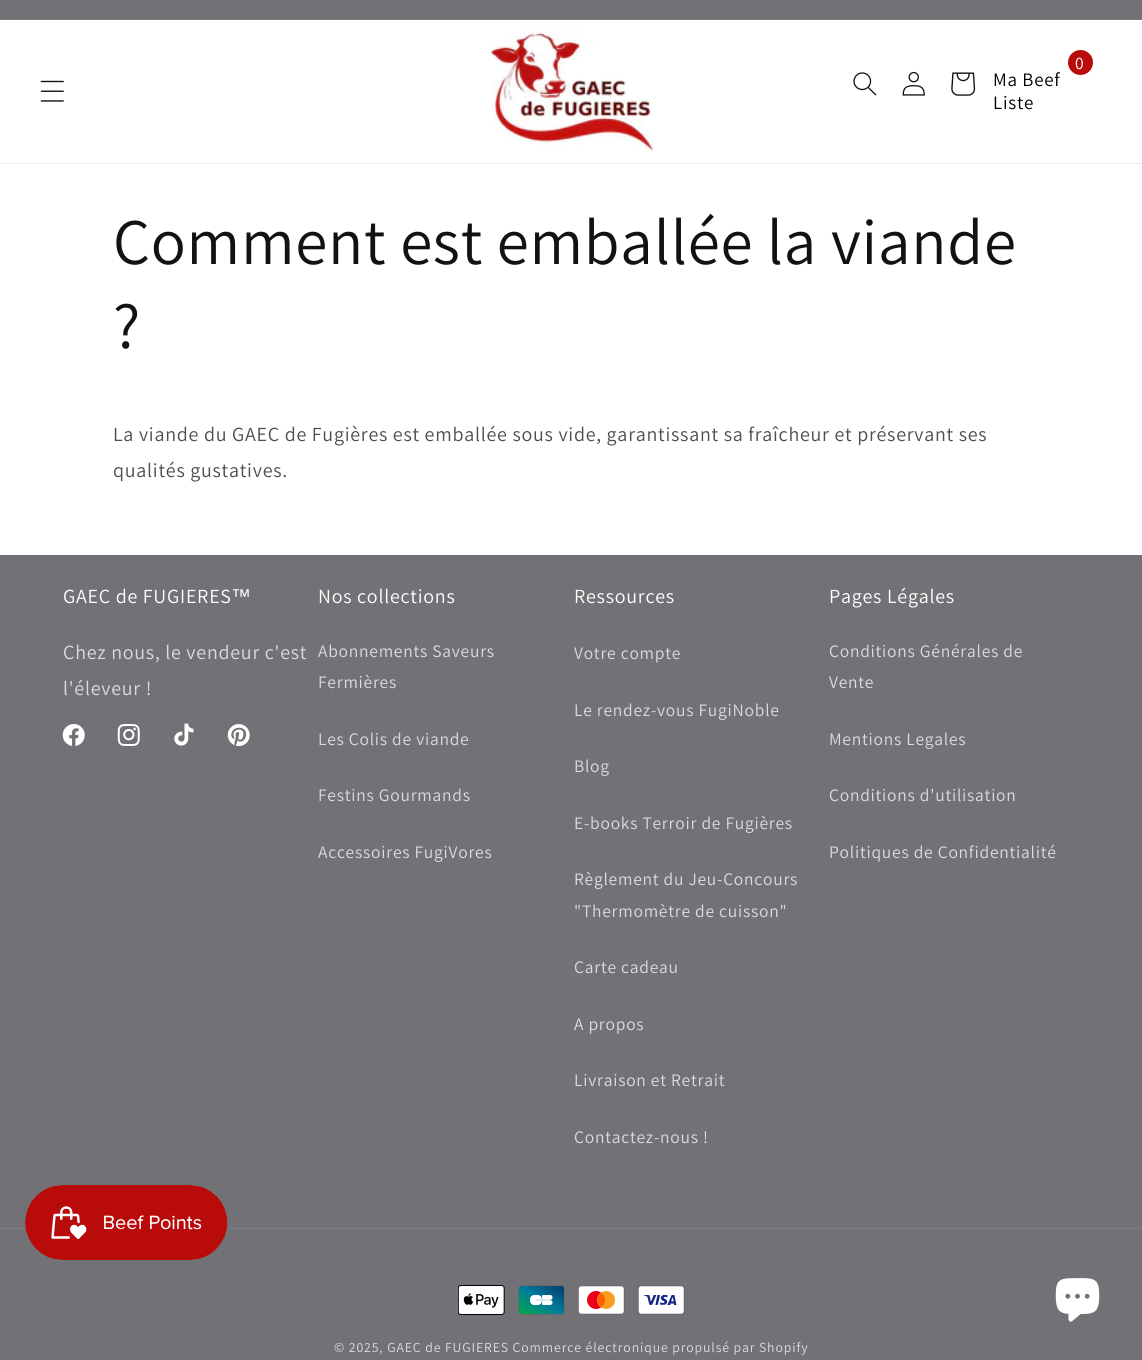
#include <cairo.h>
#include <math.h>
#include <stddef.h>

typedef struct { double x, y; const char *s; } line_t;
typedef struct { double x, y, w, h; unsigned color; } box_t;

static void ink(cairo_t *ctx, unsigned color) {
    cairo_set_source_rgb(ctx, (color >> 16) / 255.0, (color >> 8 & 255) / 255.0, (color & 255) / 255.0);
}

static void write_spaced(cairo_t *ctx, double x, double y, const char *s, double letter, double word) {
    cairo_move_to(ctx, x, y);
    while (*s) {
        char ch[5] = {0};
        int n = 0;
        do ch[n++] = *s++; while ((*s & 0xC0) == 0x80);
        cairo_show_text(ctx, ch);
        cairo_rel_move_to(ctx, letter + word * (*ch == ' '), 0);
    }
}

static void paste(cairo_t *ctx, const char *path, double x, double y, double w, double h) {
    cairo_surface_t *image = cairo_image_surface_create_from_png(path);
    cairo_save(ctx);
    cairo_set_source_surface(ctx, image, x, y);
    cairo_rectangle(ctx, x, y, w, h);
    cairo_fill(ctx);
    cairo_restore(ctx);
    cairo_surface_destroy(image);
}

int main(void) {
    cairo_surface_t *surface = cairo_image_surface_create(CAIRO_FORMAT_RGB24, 1142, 1360);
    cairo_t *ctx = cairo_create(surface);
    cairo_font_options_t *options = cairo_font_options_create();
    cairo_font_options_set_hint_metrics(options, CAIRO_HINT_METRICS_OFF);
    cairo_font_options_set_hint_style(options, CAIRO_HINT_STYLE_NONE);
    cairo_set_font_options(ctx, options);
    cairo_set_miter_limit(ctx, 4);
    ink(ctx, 0xFFFFFF);
    cairo_paint(ctx);
    {
        static const box_t items[] = {
            {0, 0, 1142, 19, 0x727276},
            {0, 19, 1142, 1, 0x7D7D81},
            {0, 163, 1142, 1, 0xECECEC},
        };
        for (size_t i = 0; i < sizeof items / sizeof *items; i++) {
            ink(ctx, items[i].color);
            cairo_rectangle(ctx, items[i].x, items[i].y, items[i].w, items[i].h);
            cairo_fill(ctx);
        }
    }
    paste(ctx, "media/1.png", 40, 80, 24, 22);
    paste(ctx, "media/2.png", 488, 30, 167, 122);
    paste(ctx, "media/3.png", 853, 72, 24, 24);
    paste(ctx, "media/4.png", 902, 71, 23, 25);
    paste(ctx, "media/5.png", 951, 72, 25, 24);
    ink(ctx, 0xBA0B0B);
    cairo_arc(ctx, 1080.5, 62.5, 12.5, 0, 2 * M_PI);
    cairo_fill(ctx);
    cairo_select_font_face(ctx, "Assistant", CAIRO_FONT_SLANT_NORMAL, CAIRO_FONT_WEIGHT_NORMAL);
    cairo_set_font_size(ctx, 17.5);
    ink(ctx, 0xFFFFFF);
    write_spaced(ctx, 1075, 69, "0", 0.75, 0);
    cairo_set_font_size(ctx, 19);
    ink(ctx, 0x000000);
    write_spaced(ctx, 993, 86, "Ma Beef", 0.75, 0);
    write_spaced(ctx, 993, 109, "Liste", 0.75, 0);
    cairo_set_font_size(ctx, 65);
    ink(ctx, 0x121212);
    write_spaced(ctx, 113, 264, "Comment est emballée la viande", 0.75, 0);
    write_spaced(ctx, 113, 348, "?", 0.75, 0);
    cairo_set_font_size(ctx, 20);
    ink(ctx, 0x4D4D4D);
    write_spaced(ctx, 113, 441, "La viande du GAEC de Fugières est emballée sous vide, garantissant sa fraîcheur et préservant ses", 0.75, 0);
    write_spaced(ctx, 113, 477, "qualités gustatives.", 0.75, 0);
    ink(ctx, 0x727276);
    cairo_rectangle(ctx, 0, 555, 1142, 805);
    cairo_fill(ctx);
    ink(ctx, 0xFFFFFF);
    write_spaced(ctx, 63, 603, "GAEC de FUGIERES", 0.75, 0);
    cairo_select_font_face(ctx, "Liberation Sans", CAIRO_FONT_SLANT_NORMAL, CAIRO_FONT_WEIGHT_NORMAL);
    write_spaced(ctx, 231, 603, "™", 0.75, 0);
    cairo_select_font_face(ctx, "Assistant", CAIRO_FONT_SLANT_NORMAL, CAIRO_FONT_WEIGHT_NORMAL);
    ink(ctx, 0xDCDCDD);
    write_spaced(ctx, 63, 659, "Chez nous, le vendeur c'est", 0.75, 0);
    write_spaced(ctx, 63, 695, "l'éleveur !", 0.75, 0);
    paste(ctx, "media/6.png", 62, 724, 23, 22);
    paste(ctx, "media/7.png", 117, 724, 23, 22);
    paste(ctx, "media/8.png", 174, 723, 20, 23);
    paste(ctx, "media/9.png", 227, 724, 23, 23);
    ink(ctx, 0xFFFFFF);
    write_spaced(ctx, 318, 603, "Nos collections", 0.75, 0);
    cairo_set_font_size(ctx, 17.5);
    ink(ctx, 0xDCDCDD);
    {
        static const line_t items[] = {
            {318, 657, "Abonnements Saveurs"},
            {318, 688, "Fermières"},
            {318, 745, "Les Colis de viande"},
            {318, 801, "Festins Gourmands"},
            {318, 858, "Accessoires FugiVores"},
        };
        for (size_t i = 0; i < sizeof items / sizeof *items; i++) {
            write_spaced(ctx, items[i].x, items[i].y, items[i].s, 0.75, 0);
        }
    }
    cairo_set_font_size(ctx, 20);
    ink(ctx, 0xFFFFFF);
    write_spaced(ctx, 574, 603, "Ressources", 0.75, 0);
    cairo_set_font_size(ctx, 17.5);
    ink(ctx, 0xDCDCDD);
    {
        static const line_t items[] = {
            {574, 659, "Votre compte"},
            {574, 716, "Le rendez-vous FugiNoble"},
            {574, 772, "Blog"},
            {574, 829, "E-books Terroir de Fugières"},
            {574, 885, "Règlement du Jeu-Concours"},
            {574, 917, "\"Thermomètre de cuisson\""},
            {574, 973, "Carte cadeau"},
            {574, 1030, "A propos"},
            {574, 1086, "Livraison et Retrait"},
            {574, 1143, "Contactez-nous !"},
        };
        for (size_t i = 0; i < sizeof items / sizeof *items; i++) {
            write_spaced(ctx, items[i].x, items[i].y, items[i].s, 0.75, 0);
        }
    }
    cairo_set_font_size(ctx, 20);
    ink(ctx, 0xFFFFFF);
    write_spaced(ctx, 829, 603, "Pages Légales", 0.75, 0);
    cairo_set_font_size(ctx, 17.5);
    ink(ctx, 0xDCDCDD);
    {
        static const line_t items[] = {
            {829, 657, "Conditions Générales de"},
            {829, 688, "Vente"},
            {829, 745, "Mentions Legales"},
            {829, 801, "Conditions d'utilisation"},
            {829, 858, "Politiques de Confidentialité"},
        };
        for (size_t i = 0; i < sizeof items / sizeof *items; i++) {
            write_spaced(ctx, items[i].x, items[i].y, items[i].s, 0.75, 0);
        }
    }
    ink(ctx, 0x7D7D81);
    cairo_rectangle(ctx, 0, 1228, 1142, 1);
    cairo_fill(ctx);
    paste(ctx, "media/10.png", 458, 1285, 47, 30);
    paste(ctx, "media/11.png", 518, 1285, 47, 30);
    paste(ctx, "media/12.png", 578, 1285, 47, 30);
    paste(ctx, "media/13.png", 638, 1285, 47, 30);
    cairo_set_font_size(ctx, 13.75);
    ink(ctx, 0xDCDCDD);
    write_spaced(ctx, 334, 1352, "© 2025, GAEC de FUGIERES Commerce électronique propulsé par Shopify", 0.88, 0);
    paste(ctx, "media/14.png", 25, 1185, 203, 75);
    paste(ctx, "media/15.png", 1055, 1278, 45, 44);
    cairo_surface_write_to_png(surface, "image.png");
    cairo_font_options_destroy(options);
    cairo_destroy(ctx);
    cairo_surface_destroy(surface);
    return 0;
}
